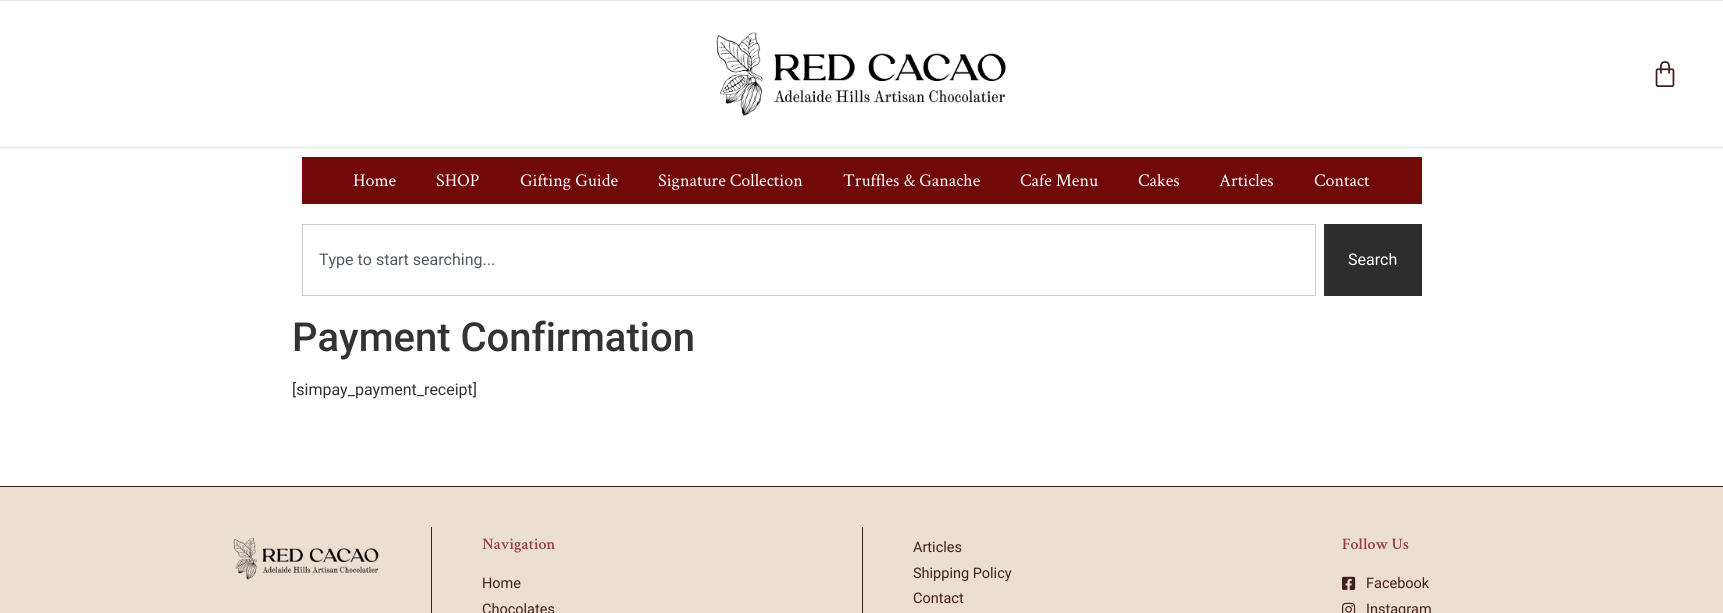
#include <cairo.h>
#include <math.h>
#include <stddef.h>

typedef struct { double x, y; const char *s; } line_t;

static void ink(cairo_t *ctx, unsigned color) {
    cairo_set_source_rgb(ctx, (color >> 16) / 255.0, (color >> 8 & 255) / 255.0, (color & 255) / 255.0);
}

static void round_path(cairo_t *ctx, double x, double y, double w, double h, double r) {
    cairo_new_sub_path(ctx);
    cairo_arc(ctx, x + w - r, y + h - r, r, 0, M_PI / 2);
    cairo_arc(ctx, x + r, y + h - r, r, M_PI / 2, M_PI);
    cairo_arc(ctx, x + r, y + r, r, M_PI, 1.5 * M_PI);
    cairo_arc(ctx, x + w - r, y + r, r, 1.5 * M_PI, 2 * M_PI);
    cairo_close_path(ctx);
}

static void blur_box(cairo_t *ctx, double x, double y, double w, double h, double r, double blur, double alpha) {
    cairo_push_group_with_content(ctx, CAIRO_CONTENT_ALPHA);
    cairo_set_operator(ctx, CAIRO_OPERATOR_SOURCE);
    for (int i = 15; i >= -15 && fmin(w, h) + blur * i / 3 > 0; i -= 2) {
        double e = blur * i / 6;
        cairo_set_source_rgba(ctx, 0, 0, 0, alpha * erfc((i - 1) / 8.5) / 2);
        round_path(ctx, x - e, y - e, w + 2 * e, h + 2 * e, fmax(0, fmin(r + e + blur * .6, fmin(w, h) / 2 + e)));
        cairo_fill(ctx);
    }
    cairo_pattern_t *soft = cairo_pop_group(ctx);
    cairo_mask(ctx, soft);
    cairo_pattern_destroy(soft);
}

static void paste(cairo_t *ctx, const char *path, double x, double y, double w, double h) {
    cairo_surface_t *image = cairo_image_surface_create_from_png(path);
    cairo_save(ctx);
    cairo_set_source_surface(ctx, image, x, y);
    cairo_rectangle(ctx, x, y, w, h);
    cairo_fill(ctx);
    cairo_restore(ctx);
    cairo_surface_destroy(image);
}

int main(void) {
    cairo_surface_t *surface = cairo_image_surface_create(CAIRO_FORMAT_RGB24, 1723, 613);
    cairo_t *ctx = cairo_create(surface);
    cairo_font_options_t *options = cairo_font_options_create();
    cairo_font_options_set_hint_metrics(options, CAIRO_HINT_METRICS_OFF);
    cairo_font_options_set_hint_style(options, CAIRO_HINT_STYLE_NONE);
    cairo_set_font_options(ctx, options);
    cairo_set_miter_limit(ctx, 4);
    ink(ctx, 0xFFFFFF);
    cairo_paint(ctx);
    cairo_save(ctx);
    cairo_set_fill_rule(ctx, CAIRO_FILL_RULE_EVEN_ODD);
    cairo_new_path(ctx);
    cairo_move_to(ctx, 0, 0);
    cairo_line_to(ctx, 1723, 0);
    cairo_line_to(ctx, 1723, 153);
    cairo_line_to(ctx, 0, 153);
    cairo_close_path(ctx);
    cairo_move_to(ctx, 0, 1);
    cairo_line_to(ctx, 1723, 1);
    cairo_line_to(ctx, 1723, 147);
    cairo_line_to(ctx, 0, 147);
    cairo_close_path(ctx);
    cairo_clip(ctx);
    ink(ctx, 0x000000);
    blur_box(ctx, 0, 1, 1723, 146, 0, 1.5, 0.25);
    cairo_restore(ctx);
    paste(ctx, "media/1.png", 716, 32, 290, 84);
    paste(ctx, "media/2.png", 1655, 61, 20, 26);
    ink(ctx, 0x710909);
    cairo_rectangle(ctx, 302, 157, 1120, 47);
    cairo_fill(ctx);
    cairo_select_font_face(ctx, "Crimson Text", CAIRO_FONT_SLANT_NORMAL, CAIRO_FONT_WEIGHT_NORMAL);
    cairo_set_font_size(ctx, 18);
    ink(ctx, 0xFFFFFF);
    {
        static const line_t items[] = {
            {353, 186, "Home"},
            {436, 186, "SHOP"},
            {520, 186, "Gifting Guide"},
            {658, 186, "Signature Collection"},
            {843, 186, "Truffles & Ganache"},
            {1020, 186, "Cafe Menu"},
            {1138, 186, "Cakes"},
            {1219, 186, "Articles"},
            {1314, 186, "Contact"},
        };
        for (size_t i = 0; i < sizeof items / sizeof *items; i++) {
            cairo_move_to(ctx, items[i].x, items[i].y);
            cairo_show_text(ctx, items[i].s);
        }
    }
    cairo_rectangle(ctx, 302.5, 224.5, 1013, 71);
    ink(ctx, 0xCDCDCD);
    cairo_set_line_width(ctx, 1);
    cairo_stroke(ctx);
    cairo_select_font_face(ctx, "Roboto", CAIRO_FONT_SLANT_NORMAL, CAIRO_FONT_WEIGHT_NORMAL);
    cairo_set_font_size(ctx, 16);
    ink(ctx, 0x515962);
    cairo_move_to(ctx, 319, 265);
    cairo_show_text(ctx, "Type to start searching...");
    ink(ctx, 0x2D2D2D);
    cairo_rectangle(ctx, 1324, 224, 98, 72);
    cairo_fill(ctx);
    ink(ctx, 0xFFFFFF);
    cairo_move_to(ctx, 1348, 265);
    cairo_show_text(ctx, "Search");
    cairo_select_font_face(ctx, "Roboto Medium", CAIRO_FONT_SLANT_NORMAL, CAIRO_FONT_WEIGHT_NORMAL);
    cairo_set_font_size(ctx, 40);
    ink(ctx, 0x333333);
    cairo_move_to(ctx, 292, 351);
    cairo_show_text(ctx, "Payment Confirmation");
    cairo_select_font_face(ctx, "Roboto", CAIRO_FONT_SLANT_NORMAL, CAIRO_FONT_WEIGHT_NORMAL);
    cairo_set_font_size(ctx, 16);
    cairo_move_to(ctx, 292, 395);
    cairo_show_text(ctx, "[simpay_payment_receipt]");
    ink(ctx, 0xECDED1);
    cairo_rectangle(ctx, 0, 487, 1723, 126);
    cairo_fill(ctx);
    ink(ctx, 0x411F1E);
    cairo_rectangle(ctx, 0, 486, 1723, 1);
    cairo_fill(ctx);
    paste(ctx, "media/3.png", 233, 537, 146, 43);
    cairo_rectangle(ctx, 431, 527, 1, 86);
    cairo_fill(ctx);
    cairo_select_font_face(ctx, "Crimson Text SemiBold", CAIRO_FONT_SLANT_NORMAL, CAIRO_FONT_WEIGHT_NORMAL);
    ink(ctx, 0x973E43);
    cairo_move_to(ctx, 482, 549);
    cairo_show_text(ctx, "Navigation");
    cairo_select_font_face(ctx, "Roboto", CAIRO_FONT_SLANT_NORMAL, CAIRO_FONT_WEIGHT_NORMAL);
    cairo_set_font_size(ctx, 14.5);
    ink(ctx, 0x411F1E);
    cairo_move_to(ctx, 482, 588);
    cairo_show_text(ctx, "Home");
    cairo_move_to(ctx, 482, 614);
    cairo_show_text(ctx, "Chocolates");
    cairo_rectangle(ctx, 862, 527, 1, 86);
    cairo_fill(ctx);
    {
        static const line_t items[] = {
            {913, 552, "Articles"},
            {913, 578, "Shipping Policy"},
            {913, 603, "Contact"},
        };
        for (size_t i = 0; i < sizeof items / sizeof *items; i++) {
            cairo_move_to(ctx, items[i].x, items[i].y);
            cairo_show_text(ctx, items[i].s);
        }
    }
    cairo_select_font_face(ctx, "Crimson Text SemiBold", CAIRO_FONT_SLANT_NORMAL, CAIRO_FONT_WEIGHT_NORMAL);
    cairo_set_font_size(ctx, 16);
    ink(ctx, 0x973E43);
    cairo_move_to(ctx, 1342, 549);
    cairo_show_text(ctx, "Follow Us");
    paste(ctx, "media/4.png", 1342, 576, 14, 14);
    cairo_select_font_face(ctx, "Roboto", CAIRO_FONT_SLANT_NORMAL, CAIRO_FONT_WEIGHT_NORMAL);
    cairo_set_font_size(ctx, 14.5);
    ink(ctx, 0x411F1E);
    cairo_move_to(ctx, 1366, 588);
    cairo_show_text(ctx, "Facebook");
    paste(ctx, "media/5.png", 1342, 602, 14, 11);
    cairo_move_to(ctx, 1366, 614);
    cairo_show_text(ctx, "Instagram");
    cairo_surface_write_to_png(surface, "image.png");
    cairo_font_options_destroy(options);
    cairo_destroy(ctx);
    cairo_surface_destroy(surface);
    return 0;
}
